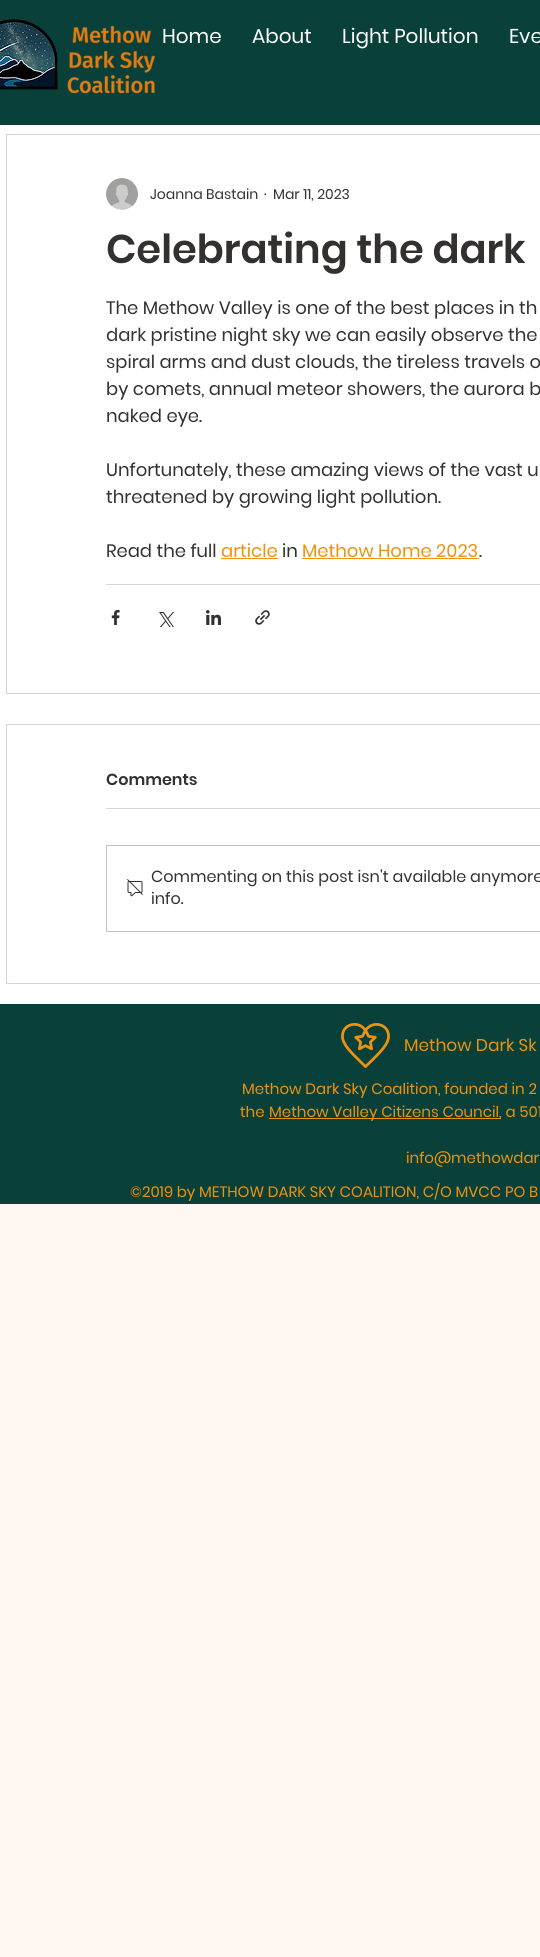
#include <cairo.h>
#include <math.h>
#include <stddef.h>

typedef struct { double x, y; const char *s; } line_t;

static void ink(cairo_t *ctx, unsigned color) {
    cairo_set_source_rgb(ctx, (color >> 16) / 255.0, (color >> 8 & 255) / 255.0, (color & 255) / 255.0);
}

static void paste(cairo_t *ctx, const char *path, double x, double y, double w, double h) {
    cairo_surface_t *image = cairo_image_surface_create_from_png(path);
    cairo_save(ctx);
    cairo_set_source_surface(ctx, image, x, y);
    cairo_rectangle(ctx, x, y, w, h);
    cairo_fill(ctx);
    cairo_restore(ctx);
    cairo_surface_destroy(image);
}

int main(void) {
    cairo_surface_t *surface = cairo_image_surface_create(CAIRO_FORMAT_RGB24, 540, 1957);
    cairo_t *ctx = cairo_create(surface);
    cairo_font_options_t *options = cairo_font_options_create();
    cairo_font_options_set_hint_metrics(options, CAIRO_HINT_METRICS_OFF);
    cairo_font_options_set_hint_style(options, CAIRO_HINT_STYLE_NONE);
    cairo_set_font_options(ctx, options);
    cairo_set_miter_limit(ctx, 4);
    ink(ctx, 0xFFF7F2);
    cairo_paint(ctx);
    ink(ctx, 0x09403A);
    cairo_rectangle(ctx, 0, 0, 540, 125);
    cairo_fill(ctx);
    paste(ctx, "media/1.png", 0, 19, 58, 71);
    paste(ctx, "media/2.png", 67, 25, 88, 69);
    cairo_select_font_face(ctx, "Poppins", CAIRO_FONT_SLANT_NORMAL, CAIRO_FONT_WEIGHT_NORMAL);
    cairo_set_font_size(ctx, 20);
    ink(ctx, 0xFFFFFF);
    {
        static const line_t items[] = {
            {162, 43, "Home"},
            {252, 43, "About"},
            {342, 43, "Light Pollution"},
            {509, 43, "Eve"},
        };
        for (size_t i = 0; i < sizeof items / sizeof *items; i++) {
            cairo_move_to(ctx, items[i].x, items[i].y);
            cairo_show_text(ctx, items[i].s);
        }
    }
    cairo_rectangle(ctx, 0, 125, 540, 879);
    cairo_fill(ctx);
    cairo_rectangle(ctx, 6.5, 134.5, 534, 559);
    ink(ctx, 0xD9D4D1);
    cairo_set_line_width(ctx, 1);
    cairo_stroke(ctx);
    paste(ctx, "media/3.png", 106, 178, 32, 32);
    cairo_set_font_size(ctx, 14);
    ink(ctx, 0x333130);
    {
        static const line_t items[] = {
            {150, 199, "Joanna Bastain"},
            {264, 199, "·"},
            {273, 199, "Mar 11, 2023"},
        };
        for (size_t i = 0; i < sizeof items / sizeof *items; i++) {
            cairo_move_to(ctx, items[i].x, items[i].y);
            cairo_show_text(ctx, items[i].s);
        }
    }
    cairo_select_font_face(ctx, "Poppins SemiBold", CAIRO_FONT_SLANT_NORMAL, CAIRO_FONT_WEIGHT_NORMAL);
    cairo_set_font_size(ctx, 40);
    cairo_move_to(ctx, 106, 263);
    cairo_show_text(ctx, "Celebrating the dark");
    cairo_select_font_face(ctx, "Poppins", CAIRO_FONT_SLANT_NORMAL, CAIRO_FONT_WEIGHT_NORMAL);
    cairo_set_font_size(ctx, 18);
    {
        static const line_t items[] = {
            {106, 314, "The Methow Valley is one of the best places in th"},
            {106, 341, "dark pristine night sky we can easily observe the"},
            {106, 368, "spiral arms and dust clouds, the tireless travels o"},
            {106, 395, "by comets, annual meteor showers, the aurora b"},
            {106, 422, "naked eye."},
            {106, 476, "Unfortunately, these amazing views of the vast u"},
            {106, 503, "threatened by growing light pollution."},
            {106, 557, "Read the full"},
        };
        for (size_t i = 0; i < sizeof items / sizeof *items; i++) {
            cairo_move_to(ctx, items[i].x, items[i].y);
            cairo_show_text(ctx, items[i].s);
        }
    }
    ink(ctx, 0xED920E);
    cairo_move_to(ctx, 221, 557);
    cairo_show_text(ctx, "article");
    cairo_rectangle(ctx, 221, 558, 57, 1);
    cairo_fill(ctx);
    ink(ctx, 0x333130);
    cairo_move_to(ctx, 282, 557);
    cairo_show_text(ctx, "in");
    ink(ctx, 0xED920E);
    cairo_move_to(ctx, 302, 557);
    cairo_show_text(ctx, "Methow Home 2023");
    cairo_rectangle(ctx, 302, 558, 177, 1);
    cairo_fill(ctx);
    ink(ctx, 0x333130);
    cairo_move_to(ctx, 479, 557);
    cairo_show_text(ctx, ".");
    ink(ctx, 0xD6D6D6);
    cairo_rectangle(ctx, 106, 584, 434, 1);
    cairo_fill(ctx);
    paste(ctx, "media/4.png", 111, 610, 9, 15);
    paste(ctx, "media/5.png", 159, 612, 15, 15);
    paste(ctx, "media/6.png", 206, 610, 15, 15);
    paste(ctx, "media/7.png", 255, 610, 15, 15);
    cairo_rectangle(ctx, 6.5, 724.5, 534, 259);
    ink(ctx, 0xD9D4D1);
    cairo_stroke(ctx);
    cairo_select_font_face(ctx, "Poppins SemiBold", CAIRO_FONT_SLANT_NORMAL, CAIRO_FONT_WEIGHT_NORMAL);
    cairo_set_font_size(ctx, 16);
    ink(ctx, 0x333130);
    cairo_move_to(ctx, 106, 785);
    cairo_show_text(ctx, "Comments");
    ink(ctx, 0xD6D6D6);
    cairo_rectangle(ctx, 106, 808, 434, 1);
    cairo_fill(ctx);
    cairo_rectangle(ctx, 106.5, 845.5, 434, 86);
    ink(ctx, 0xC2C1C1);
    cairo_stroke(ctx);
    paste(ctx, "media/8.png", 127, 879, 16, 18);
    cairo_select_font_face(ctx, "Poppins", CAIRO_FONT_SLANT_NORMAL, CAIRO_FONT_WEIGHT_NORMAL);
    ink(ctx, 0x333130);
    cairo_move_to(ctx, 151, 882);
    cairo_show_text(ctx, "Commenting on this post isn't available anymore");
    cairo_move_to(ctx, 151, 904);
    cairo_show_text(ctx, "info.");
    ink(ctx, 0x09403A);
    cairo_rectangle(ctx, 0, 1004, 540, 200);
    cairo_fill(ctx);
    paste(ctx, "media/9.png", 341, 1023, 49, 45);
    cairo_set_font_size(ctx, 17);
    ink(ctx, 0xED920E);
    cairo_move_to(ctx, 404, 1051);
    cairo_show_text(ctx, "Methow Dark Sk");
    cairo_set_font_size(ctx, 15);
    cairo_move_to(ctx, 242, 1094);
    cairo_show_text(ctx, "Methow Dark Sky Coalition, founded in 2");
    cairo_move_to(ctx, 240, 1117);
    cairo_show_text(ctx, "the");
    cairo_rectangle(ctx, 269, 1118, 232, 1);
    cairo_fill(ctx);
    {
        static const line_t items[] = {
            {269, 1117, "Methow Valley Citizens Council, a 501"},
            {406, 1163, "info@methowdar"},
            {130, 1197, "©2019 by METHOW DARK SKY COALITION, C/O MVCC PO B"},
        };
        for (size_t i = 0; i < sizeof items / sizeof *items; i++) {
            cairo_move_to(ctx, items[i].x, items[i].y);
            cairo_show_text(ctx, items[i].s);
        }
    }
    cairo_surface_write_to_png(surface, "image.png");
    cairo_font_options_destroy(options);
    cairo_destroy(ctx);
    cairo_surface_destroy(surface);
    return 0;
}
